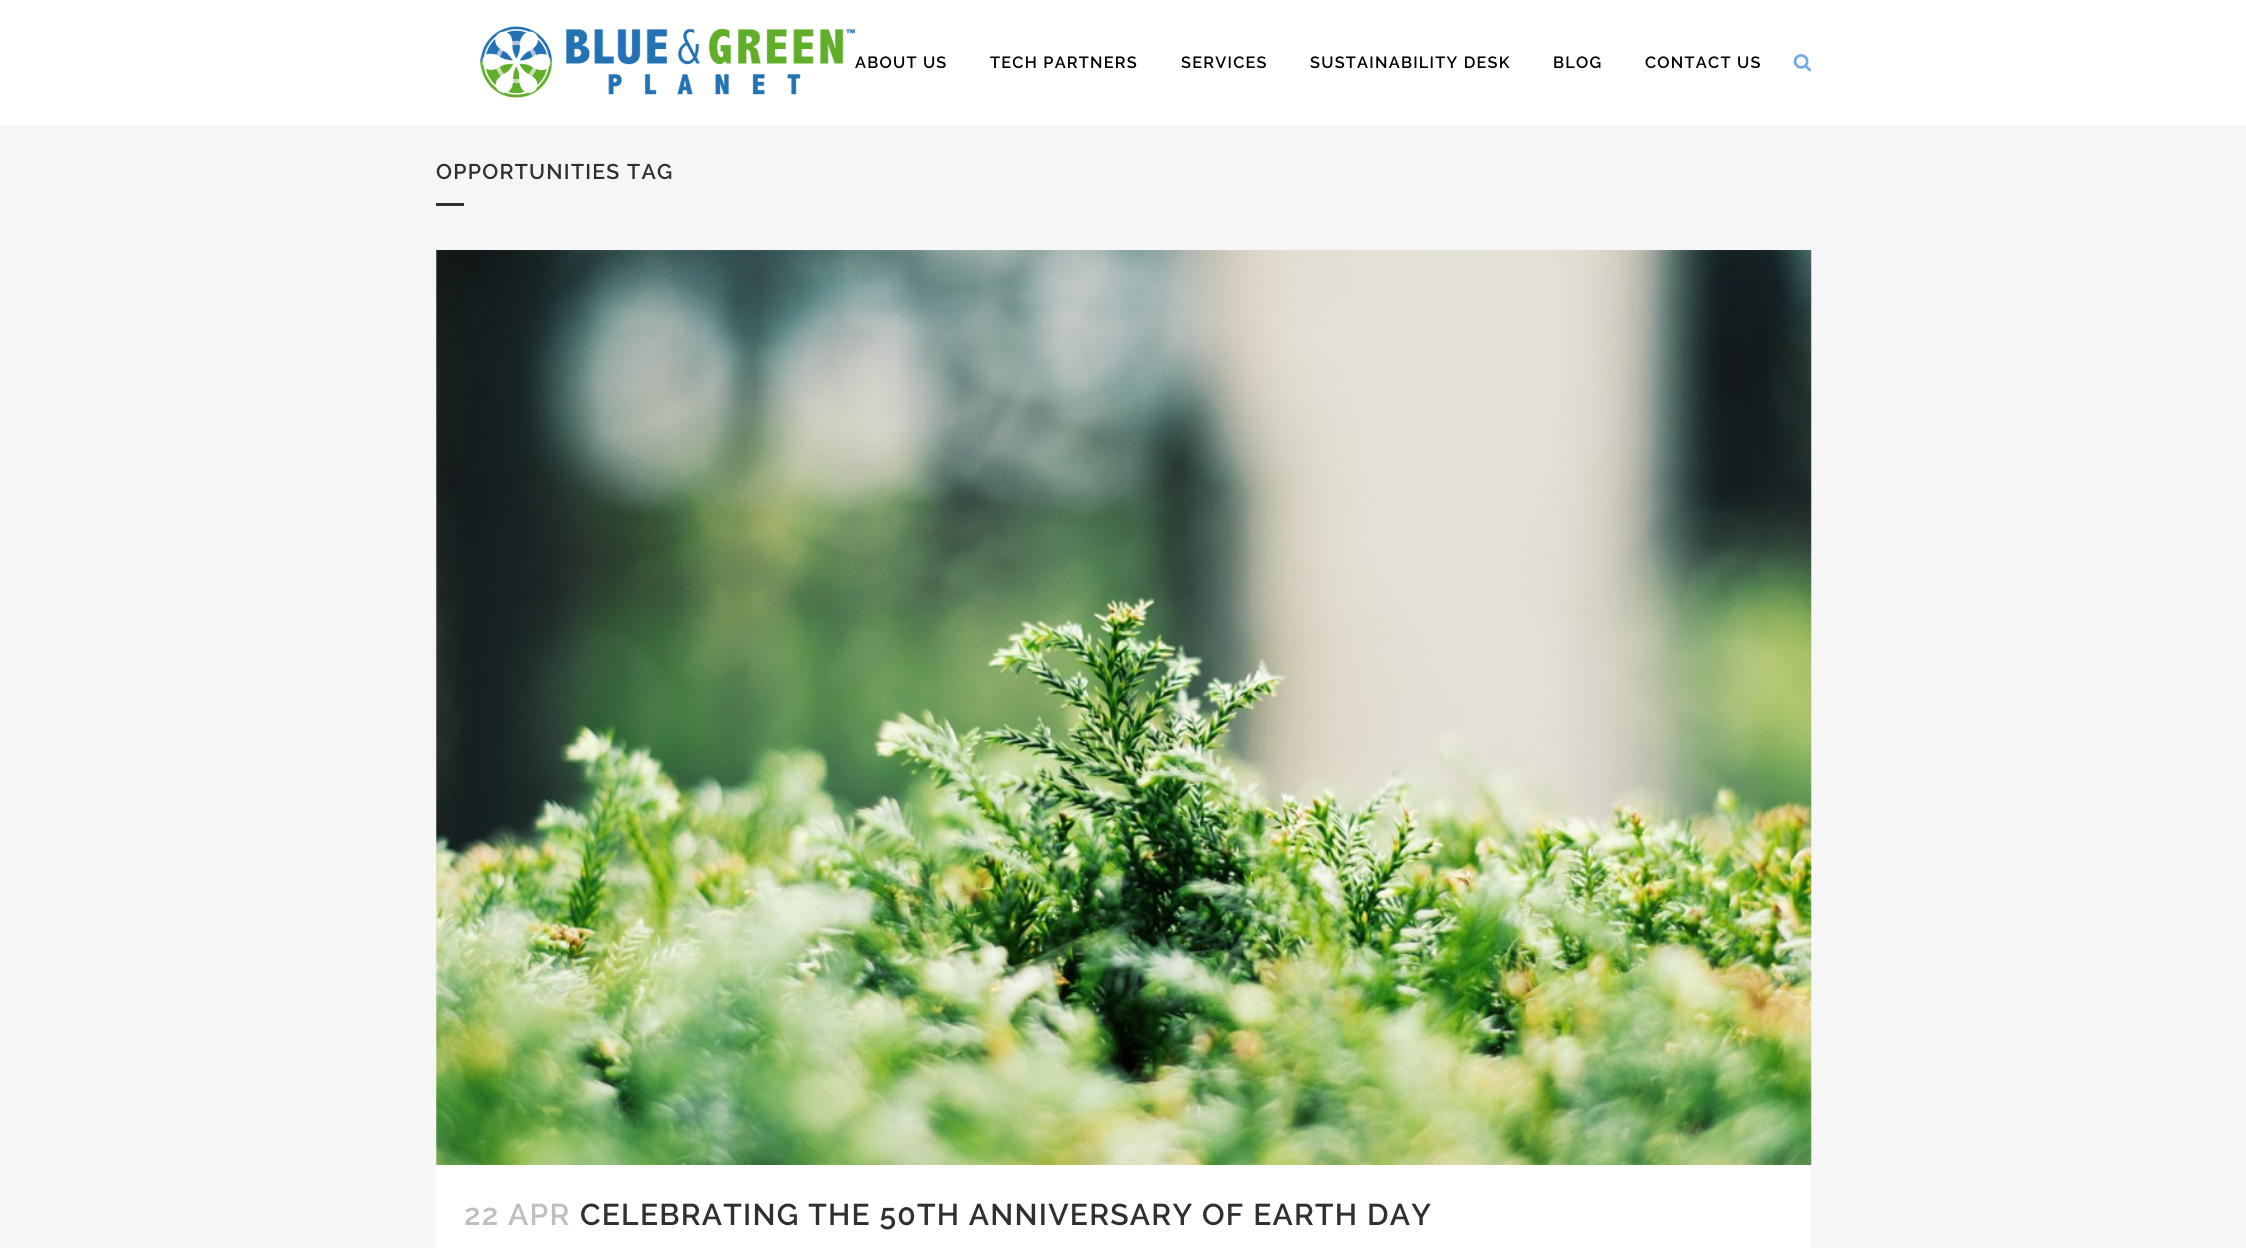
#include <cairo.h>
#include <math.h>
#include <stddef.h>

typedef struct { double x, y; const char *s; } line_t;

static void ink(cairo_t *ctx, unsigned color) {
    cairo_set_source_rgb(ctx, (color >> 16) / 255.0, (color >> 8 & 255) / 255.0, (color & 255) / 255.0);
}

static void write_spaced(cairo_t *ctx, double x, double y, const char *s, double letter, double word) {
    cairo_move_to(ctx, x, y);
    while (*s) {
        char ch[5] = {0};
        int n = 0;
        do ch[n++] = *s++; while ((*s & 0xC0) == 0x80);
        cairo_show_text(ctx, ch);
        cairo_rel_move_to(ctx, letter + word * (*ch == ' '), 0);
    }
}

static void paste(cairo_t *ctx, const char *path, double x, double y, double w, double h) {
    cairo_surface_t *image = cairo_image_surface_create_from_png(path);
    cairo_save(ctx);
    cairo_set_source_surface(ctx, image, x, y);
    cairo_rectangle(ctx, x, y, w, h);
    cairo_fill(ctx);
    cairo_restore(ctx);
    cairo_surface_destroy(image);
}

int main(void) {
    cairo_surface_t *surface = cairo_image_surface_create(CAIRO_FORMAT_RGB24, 2246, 1248);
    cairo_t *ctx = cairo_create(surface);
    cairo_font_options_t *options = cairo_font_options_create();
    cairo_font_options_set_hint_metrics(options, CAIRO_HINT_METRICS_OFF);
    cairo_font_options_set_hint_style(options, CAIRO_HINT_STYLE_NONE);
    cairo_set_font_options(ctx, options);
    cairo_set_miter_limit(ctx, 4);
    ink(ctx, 0xF6F6F6);
    cairo_paint(ctx);
    ink(ctx, 0xFFFFFF);
    cairo_rectangle(ctx, 0, 0, 2246, 125);
    cairo_fill(ctx);
    paste(ctx, "media/1.png", 480, 26, 376, 72);
    cairo_select_font_face(ctx, "Raleway SemiBold", CAIRO_FONT_SLANT_NORMAL, CAIRO_FONT_WEIGHT_NORMAL);
    cairo_set_font_size(ctx, 16.25);
    ink(ctx, 0x000000);
    {
        static const line_t items[] = {
            {855, 68, "ABOUT US"},
            {990, 68, "TECH PARTNERS"},
            {1181, 68, "SERVICES"},
            {1310, 68, "SUSTAINABILITY DESK"},
            {1553, 68, "BLOG"},
            {1645, 68, "CONTACT US"},
        };
        for (size_t i = 0; i < sizeof items / sizeof *items; i++) {
            write_spaced(ctx, items[i].x, items[i].y, items[i].s, 1.25, 0);
        }
    }
    paste(ctx, "media/2.png", 1793, 54, 19, 18);
    cairo_set_font_size(ctx, 21.25);
    ink(ctx, 0x303030);
    write_spaced(ctx, 436, 179, "OPPORTUNITIES TAG", 1.25, 0);
    cairo_rectangle(ctx, 436, 203, 28, 3);
    cairo_fill(ctx);
    paste(ctx, "media/3.png", 436, 250, 1376, 915);
    ink(ctx, 0xFFFFFF);
    cairo_rectangle(ctx, 436, 1165, 1375, 83);
    cairo_fill(ctx);
    cairo_set_font_size(ctx, 30);
    ink(ctx, 0xBEBEBE);
    write_spaced(ctx, 464, 1225, "22 APR", 1.25, 0);
    ink(ctx, 0x303030);
    write_spaced(ctx, 580, 1225, "CELEBRATING THE 50TH ANNIVERSARY OF EARTH DAY", 1.25, 0);
    cairo_surface_write_to_png(surface, "image.png");
    cairo_font_options_destroy(options);
    cairo_destroy(ctx);
    cairo_surface_destroy(surface);
    return 0;
}
